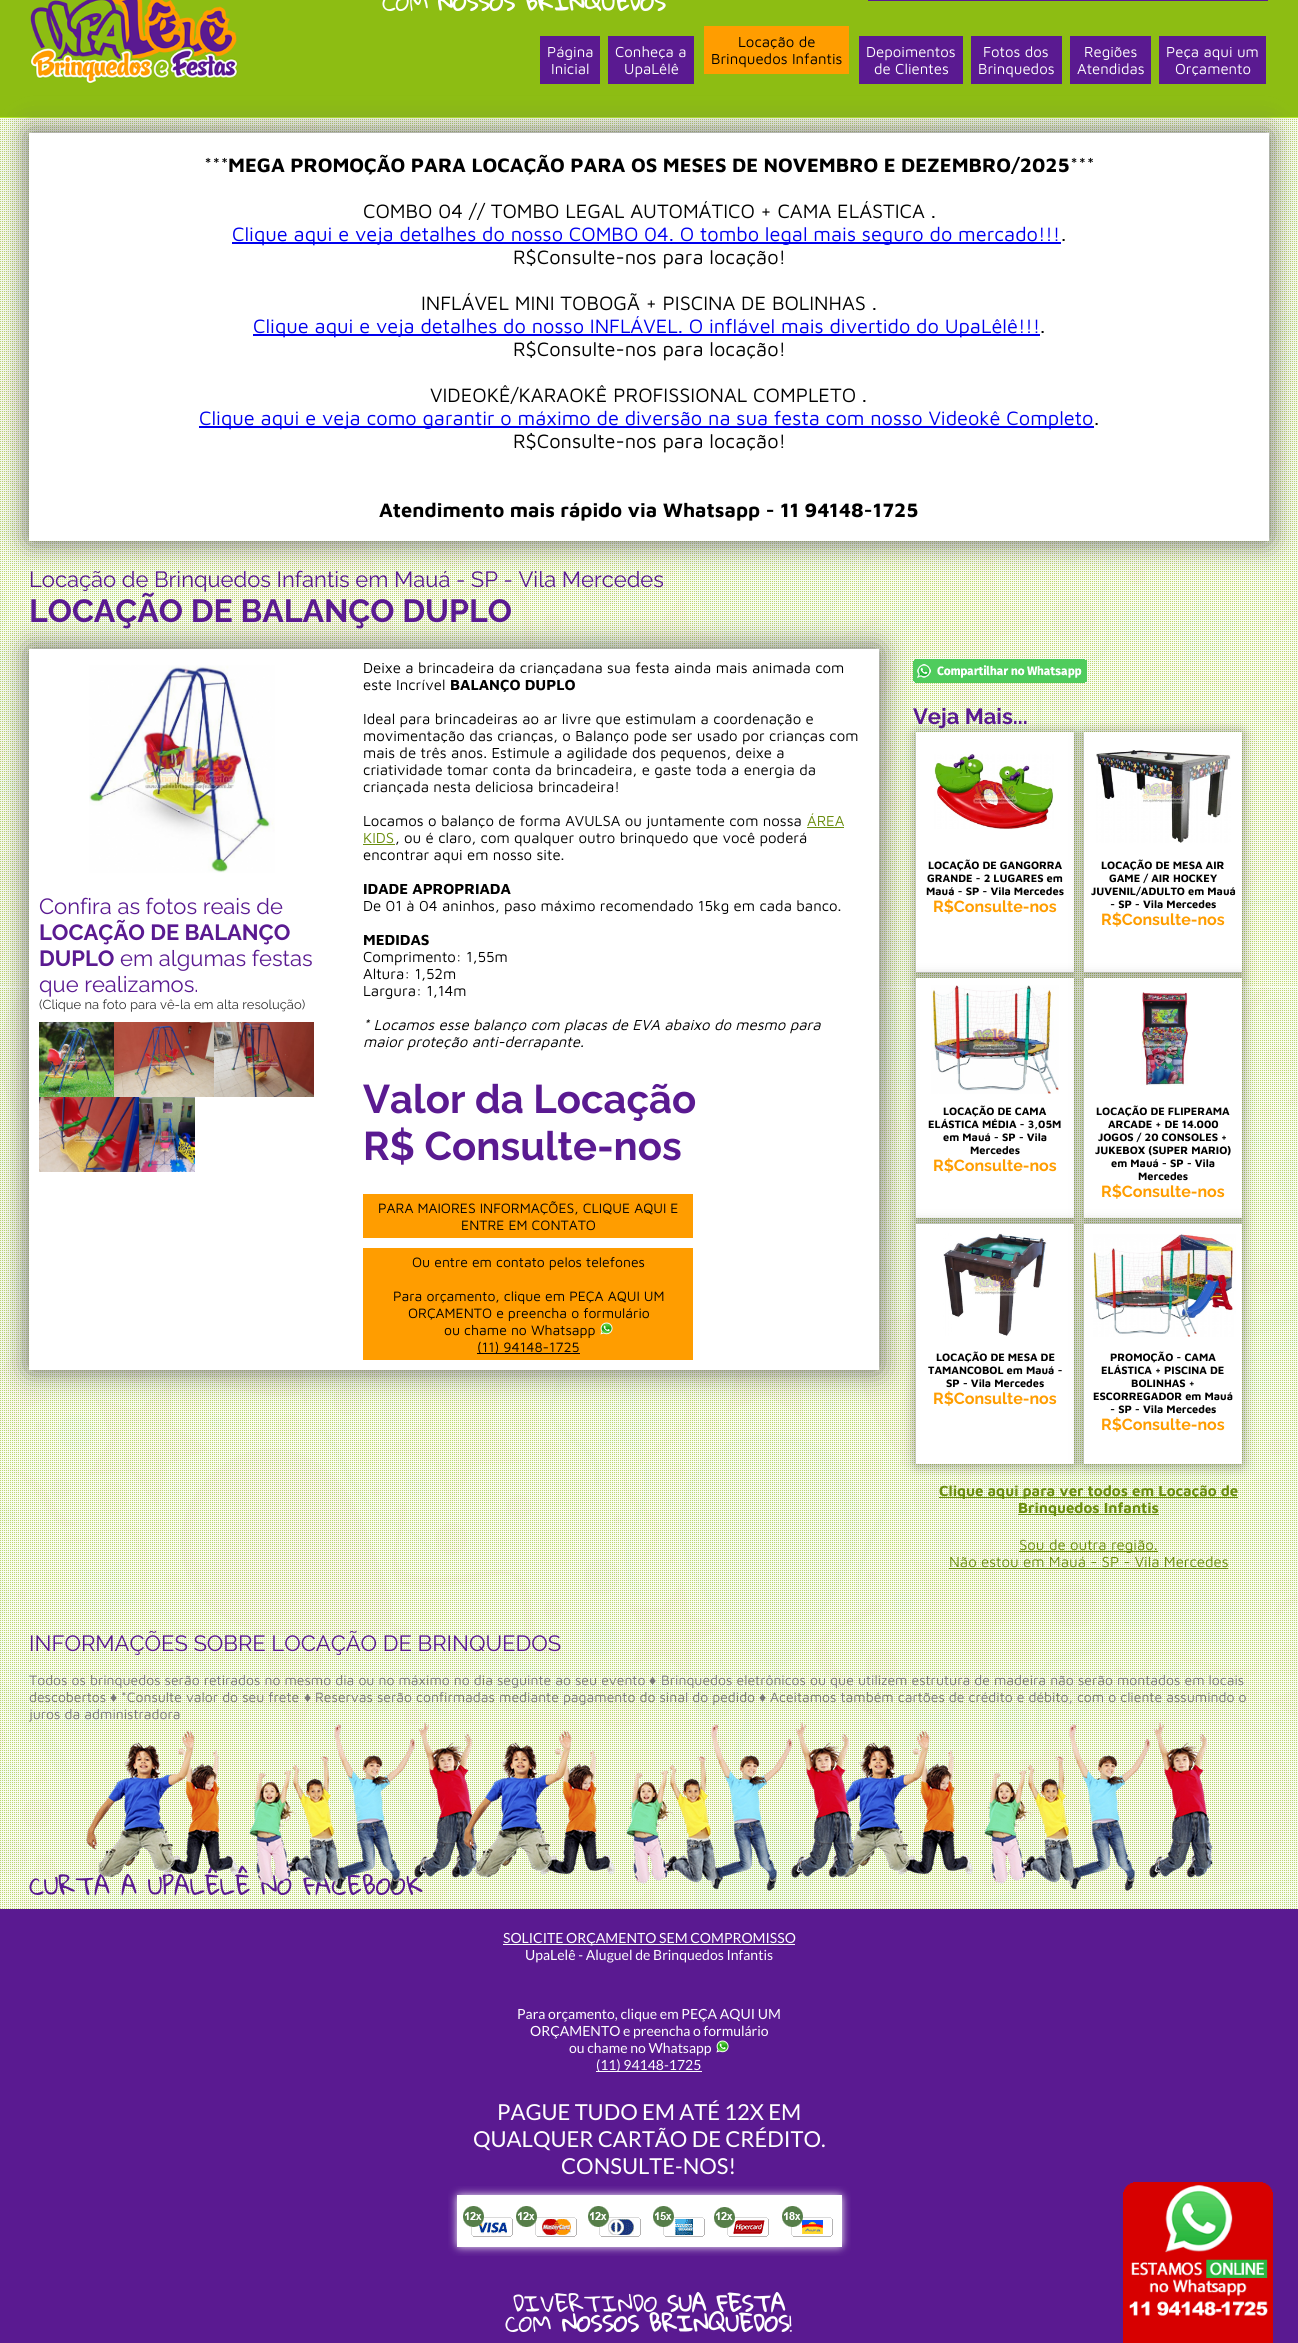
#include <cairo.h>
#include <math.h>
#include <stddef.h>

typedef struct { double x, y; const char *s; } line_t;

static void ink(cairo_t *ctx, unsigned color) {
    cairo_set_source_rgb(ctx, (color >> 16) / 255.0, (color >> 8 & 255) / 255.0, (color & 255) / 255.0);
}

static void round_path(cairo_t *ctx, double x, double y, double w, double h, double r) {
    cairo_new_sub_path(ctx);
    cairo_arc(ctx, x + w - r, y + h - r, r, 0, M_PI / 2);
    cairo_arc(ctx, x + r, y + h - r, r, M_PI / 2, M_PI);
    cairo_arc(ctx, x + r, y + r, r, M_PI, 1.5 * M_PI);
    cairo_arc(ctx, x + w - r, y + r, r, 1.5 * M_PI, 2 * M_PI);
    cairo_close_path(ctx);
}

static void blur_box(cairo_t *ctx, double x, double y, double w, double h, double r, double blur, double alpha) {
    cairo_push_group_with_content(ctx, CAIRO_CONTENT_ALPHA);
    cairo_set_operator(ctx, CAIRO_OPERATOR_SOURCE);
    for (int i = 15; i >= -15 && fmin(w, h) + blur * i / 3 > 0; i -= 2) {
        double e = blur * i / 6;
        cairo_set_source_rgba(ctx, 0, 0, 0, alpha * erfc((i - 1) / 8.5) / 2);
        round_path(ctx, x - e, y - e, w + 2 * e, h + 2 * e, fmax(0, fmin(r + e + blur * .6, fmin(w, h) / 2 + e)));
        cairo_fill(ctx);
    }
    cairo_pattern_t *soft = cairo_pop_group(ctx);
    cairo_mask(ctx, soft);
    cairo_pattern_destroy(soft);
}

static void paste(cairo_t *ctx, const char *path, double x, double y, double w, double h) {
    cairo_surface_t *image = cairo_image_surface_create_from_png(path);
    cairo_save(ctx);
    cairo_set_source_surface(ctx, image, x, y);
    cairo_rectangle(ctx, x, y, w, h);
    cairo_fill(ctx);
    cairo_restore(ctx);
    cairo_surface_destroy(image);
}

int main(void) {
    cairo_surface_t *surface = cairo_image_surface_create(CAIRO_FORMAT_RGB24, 1298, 2343);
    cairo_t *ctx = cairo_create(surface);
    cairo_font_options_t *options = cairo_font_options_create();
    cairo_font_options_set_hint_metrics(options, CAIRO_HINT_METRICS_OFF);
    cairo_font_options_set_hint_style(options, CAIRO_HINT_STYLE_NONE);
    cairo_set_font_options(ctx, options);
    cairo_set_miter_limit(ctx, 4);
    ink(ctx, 0xFFFFFF);
    cairo_paint(ctx);
    paste(ctx, "media/1.png", 0, 118, 1298, 1791);
    ink(ctx, 0x8DBD13);
    cairo_rectangle(ctx, 0, 0, 1298, 117);
    cairo_fill(ctx);
    ink(ctx, 0xB6EA2B);
    cairo_rectangle(ctx, 0, 117, 1298, 1);
    cairo_fill(ctx);
    paste(ctx, "media/2.png", 30, 0, 208, 84);
    cairo_select_font_face(ctx, "Gloria Hallelujah", CAIRO_FONT_SLANT_NORMAL, CAIRO_FONT_WEIGHT_NORMAL);
    cairo_set_font_size(ctx, 22);
    ink(ctx, 0xFFFFFF);
    cairo_move_to(ctx, 382, 11);
    cairo_show_text(ctx, "COM");
    cairo_select_font_face(ctx, "Gloria Hallelujah", CAIRO_FONT_SLANT_NORMAL, CAIRO_FONT_WEIGHT_BOLD);
    cairo_move_to(ctx, 438, 11);
    cairo_show_text(ctx, "NOSSOS BRINQUEDOS");
    ink(ctx, 0x5A1A91);
    cairo_rectangle(ctx, 868, 0, 400, 1);
    cairo_fill(ctx);
    cairo_rectangle(ctx, 540, 36, 60, 48);
    cairo_fill(ctx);
    cairo_select_font_face(ctx, "Maven Pro", CAIRO_FONT_SLANT_NORMAL, CAIRO_FONT_WEIGHT_NORMAL);
    cairo_set_font_size(ctx, 15);
    ink(ctx, 0xFFFFFF);
    cairo_move_to(ctx, 547, 57);
    cairo_show_text(ctx, "Página");
    cairo_move_to(ctx, 551, 74);
    cairo_show_text(ctx, "Inicial");
    ink(ctx, 0x5A1A91);
    cairo_rectangle(ctx, 608, 36, 86, 48);
    cairo_fill(ctx);
    ink(ctx, 0xFFFFFF);
    cairo_move_to(ctx, 615, 57);
    cairo_show_text(ctx, "Conheça a");
    cairo_move_to(ctx, 624, 74);
    cairo_show_text(ctx, "UpaLêlê");
    ink(ctx, 0xFF9D00);
    cairo_rectangle(ctx, 704, 26, 145, 48);
    cairo_fill(ctx);
    ink(ctx, 0x000000);
    cairo_move_to(ctx, 738, 47);
    cairo_show_text(ctx, "Locação de");
    cairo_move_to(ctx, 711, 64);
    cairo_show_text(ctx, "Brinquedos Infantis");
    ink(ctx, 0x5A1A91);
    cairo_rectangle(ctx, 859, 36, 104, 48);
    cairo_fill(ctx);
    ink(ctx, 0xFFFFFF);
    cairo_move_to(ctx, 866, 57);
    cairo_show_text(ctx, "Depoimentos");
    cairo_move_to(ctx, 874, 74);
    cairo_show_text(ctx, "de Clientes");
    ink(ctx, 0x5A1A91);
    cairo_rectangle(ctx, 971, 36, 91, 48);
    cairo_fill(ctx);
    ink(ctx, 0xFFFFFF);
    cairo_move_to(ctx, 983, 57);
    cairo_show_text(ctx, "Fotos dos");
    cairo_move_to(ctx, 978, 74);
    cairo_show_text(ctx, "Brinquedos");
    ink(ctx, 0x5A1A91);
    cairo_rectangle(ctx, 1070, 36, 81, 48);
    cairo_fill(ctx);
    ink(ctx, 0xFFFFFF);
    cairo_move_to(ctx, 1084, 57);
    cairo_show_text(ctx, "Regiões");
    cairo_move_to(ctx, 1077, 74);
    cairo_show_text(ctx, "Atendidas");
    ink(ctx, 0x5A1A91);
    cairo_rectangle(ctx, 1159, 36, 107, 48);
    cairo_fill(ctx);
    ink(ctx, 0xFFFFFF);
    cairo_move_to(ctx, 1166, 57);
    cairo_show_text(ctx, "Peça aqui um");
    cairo_move_to(ctx, 1175, 74);
    cairo_show_text(ctx, "Orçamento");
    ink(ctx, 0x6B6B6B);
    blur_box(ctx, 29, 133, 1240, 408, 0, 15, 1);
    ink(ctx, 0xFFFFFF);
    cairo_rectangle(ctx, 29, 133, 1240, 408);
    cairo_fill(ctx);
    cairo_set_font_size(ctx, 20);
    ink(ctx, 0x000000);
    cairo_move_to(ctx, 204, 172);
    cairo_show_text(ctx, "***");
    cairo_select_font_face(ctx, "Maven Pro", CAIRO_FONT_SLANT_NORMAL, CAIRO_FONT_WEIGHT_BOLD);
    cairo_move_to(ctx, 228, 172);
    cairo_show_text(ctx, "MEGA PROMOÇÃO PARA LOCAÇÃO PARA OS MESES DE NOVEMBRO E DEZEMBRO/2025");
    cairo_select_font_face(ctx, "Maven Pro", CAIRO_FONT_SLANT_NORMAL, CAIRO_FONT_WEIGHT_NORMAL);
    cairo_move_to(ctx, 1070, 172);
    cairo_show_text(ctx, "***");
    cairo_move_to(ctx, 363, 218);
    cairo_show_text(ctx, "COMBO 04 // TOMBO LEGAL AUTOMÁTICO + CAMA ELÁSTICA .");
    ink(ctx, 0x0000EE);
    cairo_rectangle(ctx, 232, 242, 829, 2);
    cairo_fill(ctx);
    cairo_move_to(ctx, 232, 241);
    cairo_show_text(ctx, "Clique aqui e veja detalhes do nosso COMBO 04. O tombo legal mais seguro do mercado!!!");
    ink(ctx, 0x000000);
    {
        static const line_t items[] = {
            {1061, 241, "."},
            {513, 264, "R$Consulte-nos para locação!"},
            {421, 310, "INFLÁVEL MINI TOBOGÃ + PISCINA DE BOLINHAS ."},
        };
        for (size_t i = 0; i < sizeof items / sizeof *items; i++) {
            cairo_move_to(ctx, items[i].x, items[i].y);
            cairo_show_text(ctx, items[i].s);
        }
    }
    ink(ctx, 0x0000EE);
    cairo_rectangle(ctx, 253, 334, 787, 2);
    cairo_fill(ctx);
    cairo_move_to(ctx, 253, 333);
    cairo_show_text(ctx, "Clique aqui e veja detalhes do nosso INFLÁVEL. O inflável mais divertido do UpaLêlê!!!");
    ink(ctx, 0x000000);
    {
        static const line_t items[] = {
            {1040, 333, "."},
            {513, 356, "R$Consulte-nos para locação!"},
            {430, 402, "VIDEOKÊ/KARAOKÊ PROFISSIONAL COMPLETO ."},
        };
        for (size_t i = 0; i < sizeof items / sizeof *items; i++) {
            cairo_move_to(ctx, items[i].x, items[i].y);
            cairo_show_text(ctx, items[i].s);
        }
    }
    ink(ctx, 0x0000EE);
    cairo_rectangle(ctx, 199, 426, 895, 2);
    cairo_fill(ctx);
    cairo_move_to(ctx, 199, 425);
    cairo_show_text(ctx, "Clique aqui e veja como garantir o máximo de diversão na sua festa com nosso Videokê Completo");
    ink(ctx, 0x000000);
    cairo_move_to(ctx, 1094, 425);
    cairo_show_text(ctx, ".");
    cairo_move_to(ctx, 513, 448);
    cairo_show_text(ctx, "R$Consulte-nos para locação!");
    cairo_select_font_face(ctx, "Maven Pro", CAIRO_FONT_SLANT_NORMAL, CAIRO_FONT_WEIGHT_BOLD);
    cairo_move_to(ctx, 379, 517);
    cairo_show_text(ctx, "Atendimento mais rápido via Whatsapp - 11 94148-1725");
    cairo_select_font_face(ctx, "Raleway", CAIRO_FONT_SLANT_NORMAL, CAIRO_FONT_WEIGHT_NORMAL);
    cairo_set_font_size(ctx, 22);
    ink(ctx, 0x5A1A91);
    cairo_move_to(ctx, 29, 587);
    cairo_show_text(ctx, "Locação de Brinquedos Infantis em Mauá - SP - Vila Mercedes");
    cairo_select_font_face(ctx, "Raleway", CAIRO_FONT_SLANT_NORMAL, CAIRO_FONT_WEIGHT_BOLD);
    cairo_set_font_size(ctx, 32);
    cairo_move_to(ctx, 29, 622);
    cairo_show_text(ctx, "LOCAÇÃO DE BALANÇO DUPLO");
    ink(ctx, 0x6B6B6B);
    blur_box(ctx, 29, 649, 850, 721, 0, 15, 1);
    ink(ctx, 0xFFFFFF);
    cairo_rectangle(ctx, 29, 649, 850, 721);
    cairo_fill(ctx);
    paste(ctx, "media/3.png", 89, 665, 186, 208);
    cairo_select_font_face(ctx, "Raleway", CAIRO_FONT_SLANT_NORMAL, CAIRO_FONT_WEIGHT_NORMAL);
    cairo_set_font_size(ctx, 22);
    ink(ctx, 0x5A1A91);
    cairo_move_to(ctx, 39, 914);
    cairo_show_text(ctx, "Confira as fotos reais de");
    cairo_select_font_face(ctx, "Raleway", CAIRO_FONT_SLANT_NORMAL, CAIRO_FONT_WEIGHT_BOLD);
    cairo_move_to(ctx, 39, 940);
    cairo_show_text(ctx, "LOCAÇÃO DE BALANÇO");
    cairo_move_to(ctx, 39, 966);
    cairo_show_text(ctx, "DUPLO");
    cairo_select_font_face(ctx, "Raleway", CAIRO_FONT_SLANT_NORMAL, CAIRO_FONT_WEIGHT_NORMAL);
    cairo_move_to(ctx, 120, 966);
    cairo_show_text(ctx, "em algumas festas");
    cairo_move_to(ctx, 39, 992);
    cairo_show_text(ctx, "que realizamos.");
    cairo_set_font_size(ctx, 13);
    ink(ctx, 0x333333);
    cairo_move_to(ctx, 39, 1009);
    cairo_show_text(ctx, "(Clique na foto para vê-la em alta resolução)");
    paste(ctx, "media/4.png", 39, 1022, 75, 75);
    paste(ctx, "media/5.png", 114, 1022, 100, 75);
    paste(ctx, "media/6.png", 214, 1022, 100, 75);
    paste(ctx, "media/7.png", 39, 1097, 100, 75);
    paste(ctx, "media/8.png", 139, 1097, 56, 75);
    cairo_select_font_face(ctx, "Maven Pro", CAIRO_FONT_SLANT_NORMAL, CAIRO_FONT_WEIGHT_NORMAL);
    cairo_set_font_size(ctx, 15);
    ink(ctx, 0x000000);
    cairo_move_to(ctx, 363, 673);
    cairo_show_text(ctx, "Deixe a brincadeira da criançadana sua festa ainda mais animada com");
    cairo_move_to(ctx, 363, 690);
    cairo_show_text(ctx, "este Incrível");
    cairo_select_font_face(ctx, "Maven Pro", CAIRO_FONT_SLANT_NORMAL, CAIRO_FONT_WEIGHT_BOLD);
    cairo_move_to(ctx, 450, 690);
    cairo_show_text(ctx, "BALANÇO DUPLO");
    cairo_select_font_face(ctx, "Maven Pro", CAIRO_FONT_SLANT_NORMAL, CAIRO_FONT_WEIGHT_NORMAL);
    {
        static const line_t items[] = {
            {363, 724, "Ideal para brincadeiras ao ar livre que estimulam a coordenação e"},
            {363, 741, "movimentação das crianças, o Balanço pode ser usado por crianças com"},
            {363, 758, "mais de três anos. Estimule a agilidade dos pequenos, deixe a"},
            {363, 775, "criatividade tomar conta da brincadeira, e gaste toda a energia da"},
            {363, 792, "criançada nesta deliciosa brincadeira!"},
            {363, 826, "Locamos o balanço de forma AVULSA ou juntamente com nossa"},
        };
        for (size_t i = 0; i < sizeof items / sizeof *items; i++) {
            cairo_move_to(ctx, items[i].x, items[i].y);
            cairo_show_text(ctx, items[i].s);
        }
    }
    ink(ctx, 0x6A8D0E);
    cairo_move_to(ctx, 807, 826);
    cairo_show_text(ctx, "ÁREA");
    cairo_rectangle(ctx, 807, 827, 37, 1);
    cairo_fill(ctx);
    cairo_move_to(ctx, 363, 843);
    cairo_show_text(ctx, "KIDS");
    cairo_rectangle(ctx, 363, 844, 32, 1);
    cairo_fill(ctx);
    ink(ctx, 0x000000);
    cairo_move_to(ctx, 395, 843);
    cairo_show_text(ctx, ", ou é claro, com qualquer outro brinquedo que você poderá");
    cairo_move_to(ctx, 363, 860);
    cairo_show_text(ctx, "encontrar aqui em nosso site.");
    cairo_select_font_face(ctx, "Maven Pro", CAIRO_FONT_SLANT_NORMAL, CAIRO_FONT_WEIGHT_BOLD);
    cairo_move_to(ctx, 363, 894);
    cairo_show_text(ctx, "IDADE APROPRIADA");
    cairo_select_font_face(ctx, "Maven Pro", CAIRO_FONT_SLANT_NORMAL, CAIRO_FONT_WEIGHT_NORMAL);
    cairo_move_to(ctx, 363, 911);
    cairo_show_text(ctx, "De 01 à 04 aninhos, paso máximo recomendado 15kg em cada banco.");
    cairo_select_font_face(ctx, "Maven Pro", CAIRO_FONT_SLANT_NORMAL, CAIRO_FONT_WEIGHT_BOLD);
    cairo_move_to(ctx, 363, 945);
    cairo_show_text(ctx, "MEDIDAS");
    cairo_select_font_face(ctx, "Maven Pro", CAIRO_FONT_SLANT_NORMAL, CAIRO_FONT_WEIGHT_NORMAL);
    {
        static const line_t items[] = {
            {363, 962, "Comprimento: 1,55m"},
            {363, 979, "Altura: 1,52m"},
            {363, 996, "Largura: 1,14m"},
        };
        for (size_t i = 0; i < sizeof items / sizeof *items; i++) {
            cairo_move_to(ctx, items[i].x, items[i].y);
            cairo_show_text(ctx, items[i].s);
        }
    }
    cairo_select_font_face(ctx, "Maven Pro", CAIRO_FONT_SLANT_ITALIC, CAIRO_FONT_WEIGHT_NORMAL);
    cairo_move_to(ctx, 363, 1030);
    cairo_show_text(ctx, "* Locamos esse balanço com placas de EVA abaixo do mesmo para");
    cairo_move_to(ctx, 363, 1047);
    cairo_show_text(ctx, "maior proteção anti-derrapante.");
    cairo_select_font_face(ctx, "Raleway", CAIRO_FONT_SLANT_NORMAL, CAIRO_FONT_WEIGHT_BOLD);
    cairo_set_font_size(ctx, 40);
    ink(ctx, 0x5A1A91);
    cairo_move_to(ctx, 363, 1113);
    cairo_show_text(ctx, "Valor da Locação");
    cairo_move_to(ctx, 363, 1160);
    cairo_show_text(ctx, "R$ Consulte-nos");
    ink(ctx, 0xFF9D00);
    cairo_rectangle(ctx, 363, 1194, 330, 44);
    cairo_fill(ctx);
    cairo_select_font_face(ctx, "Maven Pro", CAIRO_FONT_SLANT_NORMAL, CAIRO_FONT_WEIGHT_NORMAL);
    cairo_set_font_size(ctx, 14);
    ink(ctx, 0x000000);
    cairo_move_to(ctx, 378, 1213);
    cairo_show_text(ctx, "PARA MAIORES INFORMAÇÕES, CLIQUE AQUI E");
    cairo_move_to(ctx, 461, 1230);
    cairo_show_text(ctx, "ENTRE EM CONTATO");
    ink(ctx, 0xFF9D00);
    cairo_rectangle(ctx, 363, 1248, 330, 112);
    cairo_fill(ctx);
    ink(ctx, 0x000000);
    {
        static const line_t items[] = {
            {412, 1267, "Ou entre em contato pelos telefones"},
            {393, 1301, "Para orçamento, clique em PEÇA AQUI UM"},
            {408, 1318, "ORÇAMENTO e preencha o formulário"},
            {444, 1335, "ou chame no Whatsapp"},
        };
        for (size_t i = 0; i < sizeof items / sizeof *items; i++) {
            cairo_move_to(ctx, items[i].x, items[i].y);
            cairo_show_text(ctx, items[i].s);
        }
    }
    paste(ctx, "media/9.png", 600, 1322, 13, 13);
    cairo_rectangle(ctx, 477, 1353, 103, 1);
    cairo_fill(ctx);
    cairo_move_to(ctx, 477, 1352);
    cairo_show_text(ctx, "(11) 94148-1725");
    paste(ctx, "media/10.png", 913, 659, 174, 24);
    cairo_select_font_face(ctx, "Raleway", CAIRO_FONT_SLANT_NORMAL, CAIRO_FONT_WEIGHT_BOLD);
    cairo_set_font_size(ctx, 22);
    ink(ctx, 0x5A1A91);
    cairo_move_to(ctx, 913, 724);
    cairo_show_text(ctx, "Veja Mais...");
    ink(ctx, 0x000000);
    blur_box(ctx, 916, 733, 158, 240, 0, 6.5, 0.4);
    ink(ctx, 0xFFFFFF);
    cairo_rectangle(ctx, 916, 732, 158, 240);
    cairo_fill(ctx);
    paste(ctx, "media/11.png", 934, 754, 120, 75);
    cairo_select_font_face(ctx, "Maven Pro", CAIRO_FONT_SLANT_NORMAL, CAIRO_FONT_WEIGHT_BOLD);
    cairo_set_font_size(ctx, 11);
    ink(ctx, 0x000000);
    {
        static const line_t items[] = {
            {928, 869, "LOCAÇÃO DE GANGORRA"},
            {927, 882, "GRANDE - 2 LUGARES em"},
            {926, 895, "Mauá - SP - Vila Mercedes"},
        };
        for (size_t i = 0; i < sizeof items / sizeof *items; i++) {
            cairo_move_to(ctx, items[i].x, items[i].y);
            cairo_show_text(ctx, items[i].s);
        }
    }
    cairo_select_font_face(ctx, "Raleway", CAIRO_FONT_SLANT_NORMAL, CAIRO_FONT_WEIGHT_BOLD);
    cairo_set_font_size(ctx, 16);
    ink(ctx, 0xFF9D00);
    cairo_move_to(ctx, 933, 912);
    cairo_show_text(ctx, "R$Consulte-nos");
    ink(ctx, 0x000000);
    blur_box(ctx, 1084, 733, 158, 240, 0, 6.5, 0.4);
    ink(ctx, 0xFFFFFF);
    cairo_rectangle(ctx, 1084, 732, 158, 240);
    cairo_fill(ctx);
    paste(ctx, "media/12.png", 1096, 750, 135, 93);
    cairo_select_font_face(ctx, "Maven Pro", CAIRO_FONT_SLANT_NORMAL, CAIRO_FONT_WEIGHT_BOLD);
    cairo_set_font_size(ctx, 11);
    ink(ctx, 0x000000);
    {
        static const line_t items[] = {
            {1101, 869, "LOCAÇÃO DE MESA AIR"},
            {1109, 882, "GAME / AIR HOCKEY"},
            {1091, 895, "JUVENIL/ADULTO em Mauá"},
            {1110, 908, "- SP - Vila Mercedes"},
        };
        for (size_t i = 0; i < sizeof items / sizeof *items; i++) {
            cairo_move_to(ctx, items[i].x, items[i].y);
            cairo_show_text(ctx, items[i].s);
        }
    }
    cairo_select_font_face(ctx, "Raleway", CAIRO_FONT_SLANT_NORMAL, CAIRO_FONT_WEIGHT_BOLD);
    cairo_set_font_size(ctx, 16);
    ink(ctx, 0xFF9D00);
    cairo_move_to(ctx, 1101, 925);
    cairo_show_text(ctx, "R$Consulte-nos");
    ink(ctx, 0x000000);
    blur_box(ctx, 916, 979, 158, 240, 0, 6.5, 0.4);
    ink(ctx, 0xFFFFFF);
    cairo_rectangle(ctx, 916, 978, 158, 240);
    cairo_fill(ctx);
    paste(ctx, "media/13.png", 931, 985, 128, 109);
    cairo_select_font_face(ctx, "Maven Pro", CAIRO_FONT_SLANT_NORMAL, CAIRO_FONT_WEIGHT_BOLD);
    cairo_set_font_size(ctx, 11);
    ink(ctx, 0x000000);
    {
        static const line_t items[] = {
            {943, 1115, "LOCAÇÃO DE CAMA"},
            {928, 1128, "ELÁSTICA MÉDIA - 3,05M"},
            {943, 1141, "em Mauá - SP - Vila"},
            {970, 1154, "Mercedes"},
        };
        for (size_t i = 0; i < sizeof items / sizeof *items; i++) {
            cairo_move_to(ctx, items[i].x, items[i].y);
            cairo_show_text(ctx, items[i].s);
        }
    }
    cairo_select_font_face(ctx, "Raleway", CAIRO_FONT_SLANT_NORMAL, CAIRO_FONT_WEIGHT_BOLD);
    cairo_set_font_size(ctx, 16);
    ink(ctx, 0xFF9D00);
    cairo_move_to(ctx, 933, 1171);
    cairo_show_text(ctx, "R$Consulte-nos");
    ink(ctx, 0x000000);
    blur_box(ctx, 1084, 979, 158, 240, 0, 6.5, 0.4);
    ink(ctx, 0xFFFFFF);
    cairo_rectangle(ctx, 1084, 978, 158, 240);
    cairo_fill(ctx);
    paste(ctx, "media/14.png", 1141, 992, 47, 94);
    cairo_select_font_face(ctx, "Maven Pro", CAIRO_FONT_SLANT_NORMAL, CAIRO_FONT_WEIGHT_BOLD);
    cairo_set_font_size(ctx, 11);
    ink(ctx, 0x000000);
    {
        static const line_t items[] = {
            {1096, 1115, "LOCAÇÃO DE FLIPERAMA"},
            {1108, 1128, "ARCADE + DE 14.000"},
            {1098, 1141, "JOGOS / 20 CONSOLES +"},
            {1095, 1154, "JUKEBOX (SUPER MARIO)"},
            {1111, 1167, "em Mauá - SP - Vila"},
            {1138, 1180, "Mercedes"},
        };
        for (size_t i = 0; i < sizeof items / sizeof *items; i++) {
            cairo_move_to(ctx, items[i].x, items[i].y);
            cairo_show_text(ctx, items[i].s);
        }
    }
    cairo_select_font_face(ctx, "Raleway", CAIRO_FONT_SLANT_NORMAL, CAIRO_FONT_WEIGHT_BOLD);
    cairo_set_font_size(ctx, 16);
    ink(ctx, 0xFF9D00);
    cairo_move_to(ctx, 1101, 1197);
    cairo_show_text(ctx, "R$Consulte-nos");
    ink(ctx, 0x000000);
    blur_box(ctx, 916, 1225, 158, 240, 0, 6.5, 0.4);
    ink(ctx, 0xFFFFFF);
    cairo_rectangle(ctx, 916, 1224, 158, 240);
    cairo_fill(ctx);
    paste(ctx, "media/15.png", 943, 1233, 105, 103);
    cairo_select_font_face(ctx, "Maven Pro", CAIRO_FONT_SLANT_NORMAL, CAIRO_FONT_WEIGHT_BOLD);
    cairo_set_font_size(ctx, 11);
    ink(ctx, 0x000000);
    {
        static const line_t items[] = {
            {936, 1361, "LOCAÇÃO DE MESA DE"},
            {928, 1374, "TAMANCOBOL em Mauá -"},
            {946, 1387, "SP - Vila Mercedes"},
        };
        for (size_t i = 0; i < sizeof items / sizeof *items; i++) {
            cairo_move_to(ctx, items[i].x, items[i].y);
            cairo_show_text(ctx, items[i].s);
        }
    }
    cairo_select_font_face(ctx, "Raleway", CAIRO_FONT_SLANT_NORMAL, CAIRO_FONT_WEIGHT_BOLD);
    cairo_set_font_size(ctx, 16);
    ink(ctx, 0xFF9D00);
    cairo_move_to(ctx, 933, 1404);
    cairo_show_text(ctx, "R$Consulte-nos");
    ink(ctx, 0x000000);
    blur_box(ctx, 1084, 1225, 158, 240, 0, 6.5, 0.4);
    ink(ctx, 0xFFFFFF);
    cairo_rectangle(ctx, 1084, 1224, 158, 240);
    cairo_fill(ctx);
    paste(ctx, "media/16.png", 1093, 1234, 143, 103);
    cairo_select_font_face(ctx, "Maven Pro", CAIRO_FONT_SLANT_NORMAL, CAIRO_FONT_WEIGHT_BOLD);
    cairo_set_font_size(ctx, 11);
    ink(ctx, 0x000000);
    {
        static const line_t items[] = {
            {1110, 1361, "PROMOÇÃO - CAMA"},
            {1101, 1374, "ELÁSTICA + PISCINA DE"},
            {1131, 1387, "BOLINHAS +"},
            {1093, 1400, "ESCORREGADOR em Mauá"},
            {1110, 1413, "- SP - Vila Mercedes"},
        };
        for (size_t i = 0; i < sizeof items / sizeof *items; i++) {
            cairo_move_to(ctx, items[i].x, items[i].y);
            cairo_show_text(ctx, items[i].s);
        }
    }
    cairo_select_font_face(ctx, "Raleway", CAIRO_FONT_SLANT_NORMAL, CAIRO_FONT_WEIGHT_BOLD);
    cairo_set_font_size(ctx, 16);
    ink(ctx, 0xFF9D00);
    cairo_move_to(ctx, 1101, 1430);
    cairo_show_text(ctx, "R$Consulte-nos");
    ink(ctx, 0x6A8D0E);
    cairo_rectangle(ctx, 939, 1497, 299, 1);
    cairo_fill(ctx);
    cairo_select_font_face(ctx, "Maven Pro", CAIRO_FONT_SLANT_NORMAL, CAIRO_FONT_WEIGHT_BOLD);
    cairo_set_font_size(ctx, 15);
    cairo_move_to(ctx, 939, 1496);
    cairo_show_text(ctx, "Clique aqui para ver todos em Locação de");
    cairo_rectangle(ctx, 1018, 1514, 141, 1);
    cairo_fill(ctx);
    cairo_move_to(ctx, 1018, 1513);
    cairo_show_text(ctx, "Brinquedos Infantis");
    cairo_rectangle(ctx, 1019, 1551, 139, 1);
    cairo_fill(ctx);
    cairo_select_font_face(ctx, "Maven Pro", CAIRO_FONT_SLANT_NORMAL, CAIRO_FONT_WEIGHT_NORMAL);
    cairo_move_to(ctx, 1019, 1550);
    cairo_show_text(ctx, "Sou de outra região.");
    cairo_move_to(ctx, 949, 1567);
    cairo_show_text(ctx, "Não estou em Mauá - SP - Vila Mercedes");
    cairo_rectangle(ctx, 949, 1568, 279, 1);
    cairo_fill(ctx);
    cairo_select_font_face(ctx, "Raleway", CAIRO_FONT_SLANT_NORMAL, CAIRO_FONT_WEIGHT_NORMAL);
    cairo_set_font_size(ctx, 22);
    ink(ctx, 0x5A1A91);
    cairo_move_to(ctx, 29, 1651);
    cairo_show_text(ctx, "INFORMAÇÕES SOBRE LOCAÇÃO DE BRINQUEDOS");
    cairo_select_font_face(ctx, "Maven Pro", CAIRO_FONT_SLANT_NORMAL, CAIRO_FONT_WEIGHT_NORMAL);
    cairo_set_font_size(ctx, 14);
    ink(ctx, 0x777777);
    cairo_move_to(ctx, 29, 1685);
    cairo_show_text(ctx, "Todos os brinquedos serão retirados no mesmo dia ou no máximo no dia seguinte ao seu evento");
    cairo_select_font_face(ctx, "Liberation Sans", CAIRO_FONT_SLANT_NORMAL, CAIRO_FONT_WEIGHT_NORMAL);
    cairo_move_to(ctx, 649, 1685);
    cairo_show_text(ctx, "♦");
    cairo_select_font_face(ctx, "Maven Pro", CAIRO_FONT_SLANT_NORMAL, CAIRO_FONT_WEIGHT_NORMAL);
    cairo_move_to(ctx, 661, 1685);
    cairo_show_text(ctx, "Brinquedos eletrônicos ou que utilizem estrutura de madeira não serão montados em locais");
    cairo_move_to(ctx, 29, 1702);
    cairo_show_text(ctx, "descobertos");
    cairo_select_font_face(ctx, "Liberation Sans", CAIRO_FONT_SLANT_NORMAL, CAIRO_FONT_WEIGHT_NORMAL);
    cairo_move_to(ctx, 110, 1702);
    cairo_show_text(ctx, "♦");
    cairo_select_font_face(ctx, "Maven Pro", CAIRO_FONT_SLANT_NORMAL, CAIRO_FONT_WEIGHT_NORMAL);
    cairo_move_to(ctx, 121, 1702);
    cairo_show_text(ctx, "*Consulte valor do seu frete");
    cairo_select_font_face(ctx, "Liberation Sans", CAIRO_FONT_SLANT_NORMAL, CAIRO_FONT_WEIGHT_NORMAL);
    cairo_move_to(ctx, 304, 1702);
    cairo_show_text(ctx, "♦");
    cairo_select_font_face(ctx, "Maven Pro", CAIRO_FONT_SLANT_NORMAL, CAIRO_FONT_WEIGHT_NORMAL);
    cairo_move_to(ctx, 315, 1702);
    cairo_show_text(ctx, "Reservas serão confirmadas mediante pagamento do sinal do pedido");
    cairo_select_font_face(ctx, "Liberation Sans", CAIRO_FONT_SLANT_NORMAL, CAIRO_FONT_WEIGHT_NORMAL);
    cairo_move_to(ctx, 759, 1702);
    cairo_show_text(ctx, "♦");
    cairo_select_font_face(ctx, "Maven Pro", CAIRO_FONT_SLANT_NORMAL, CAIRO_FONT_WEIGHT_NORMAL);
    cairo_move_to(ctx, 770, 1702);
    cairo_show_text(ctx, "Aceitamos também cartões de crédito e débito, com o cliente assumindo o");
    cairo_move_to(ctx, 29, 1719);
    cairo_show_text(ctx, "juros da administradora");
    cairo_select_font_face(ctx, "Gloria Hallelujah", CAIRO_FONT_SLANT_NORMAL, CAIRO_FONT_WEIGHT_NORMAL);
    cairo_set_font_size(ctx, 24);
    ink(ctx, 0x5A1A91);
    cairo_move_to(ctx, 29, 1895);
    cairo_show_text(ctx, "CURTA A UPALÊLÊ NO FACEBOOK");
    paste(ctx, "media/17.png", 86, 1722, 1127, 169);
    cairo_rectangle(ctx, 0, 1909, 1298, 434);
    cairo_fill(ctx);
    ink(ctx, 0xFFFFFF);
    cairo_rectangle(ctx, 503, 1944, 292, 1);
    cairo_fill(ctx);
    cairo_select_font_face(ctx, "Lato", CAIRO_FONT_SLANT_NORMAL, CAIRO_FONT_WEIGHT_NORMAL);
    cairo_set_font_size(ctx, 14);
    {
        static const line_t items[] = {
            {503, 1943, "SOLICITE ORÇAMENTO SEM COMPROMISSO"},
            {525, 1960, "UpaLelê - Aluguel de Brinquedos Infantis"},
            {517, 2019, "Para orçamento, clique em PEÇA AQUI UM"},
            {530, 2036, "ORÇAMENTO e preencha o formulário"},
            {569, 2053, "ou chame no Whatsapp"},
        };
        for (size_t i = 0; i < sizeof items / sizeof *items; i++) {
            cairo_move_to(ctx, items[i].x, items[i].y);
            cairo_show_text(ctx, items[i].s);
        }
    }
    paste(ctx, "media/18.png", 716, 2040, 13, 13);
    cairo_rectangle(ctx, 596, 2071, 106, 1);
    cairo_fill(ctx);
    cairo_move_to(ctx, 596, 2070);
    cairo_show_text(ctx, "(11) 94148-1725");
    paste(ctx, "media/19.png", 448, 2186, 403, 70);
    cairo_set_font_size(ctx, 22);
    {
        static const line_t items[] = {
            {497, 2120, "PAGUE TUDO EM ATÉ 12X EM"},
            {473, 2147, "QUALQUER CARTÃO DE CRÉDITO."},
            {561, 2174, "CONSULTE-NOS!"},
        };
        for (size_t i = 0; i < sizeof items / sizeof *items; i++) {
            cairo_move_to(ctx, items[i].x, items[i].y);
            cairo_show_text(ctx, items[i].s);
        }
    }
    cairo_select_font_face(ctx, "Gloria Hallelujah", CAIRO_FONT_SLANT_NORMAL, CAIRO_FONT_WEIGHT_NORMAL);
    cairo_move_to(ctx, 513, 2312);
    cairo_show_text(ctx, "DIVERTINDO");
    cairo_select_font_face(ctx, "Gloria Hallelujah", CAIRO_FONT_SLANT_NORMAL, CAIRO_FONT_WEIGHT_BOLD);
    cairo_move_to(ctx, 667, 2312);
    cairo_show_text(ctx, "SUA FESTA");
    cairo_select_font_face(ctx, "Gloria Hallelujah", CAIRO_FONT_SLANT_NORMAL, CAIRO_FONT_WEIGHT_NORMAL);
    cairo_move_to(ctx, 505, 2332);
    cairo_show_text(ctx, "COM");
    cairo_select_font_face(ctx, "Gloria Hallelujah", CAIRO_FONT_SLANT_NORMAL, CAIRO_FONT_WEIGHT_BOLD);
    cairo_move_to(ctx, 562, 2332);
    cairo_show_text(ctx, "NOSSOS BRINQUEDOS");
    cairo_select_font_face(ctx, "Gloria Hallelujah", CAIRO_FONT_SLANT_NORMAL, CAIRO_FONT_WEIGHT_NORMAL);
    cairo_move_to(ctx, 789, 2332);
    cairo_show_text(ctx, "!");
    paste(ctx, "media/20.png", 1123, 2182, 150, 161);
    cairo_surface_write_to_png(surface, "image.png");
    cairo_font_options_destroy(options);
    cairo_destroy(ctx);
    cairo_surface_destroy(surface);
    return 0;
}
